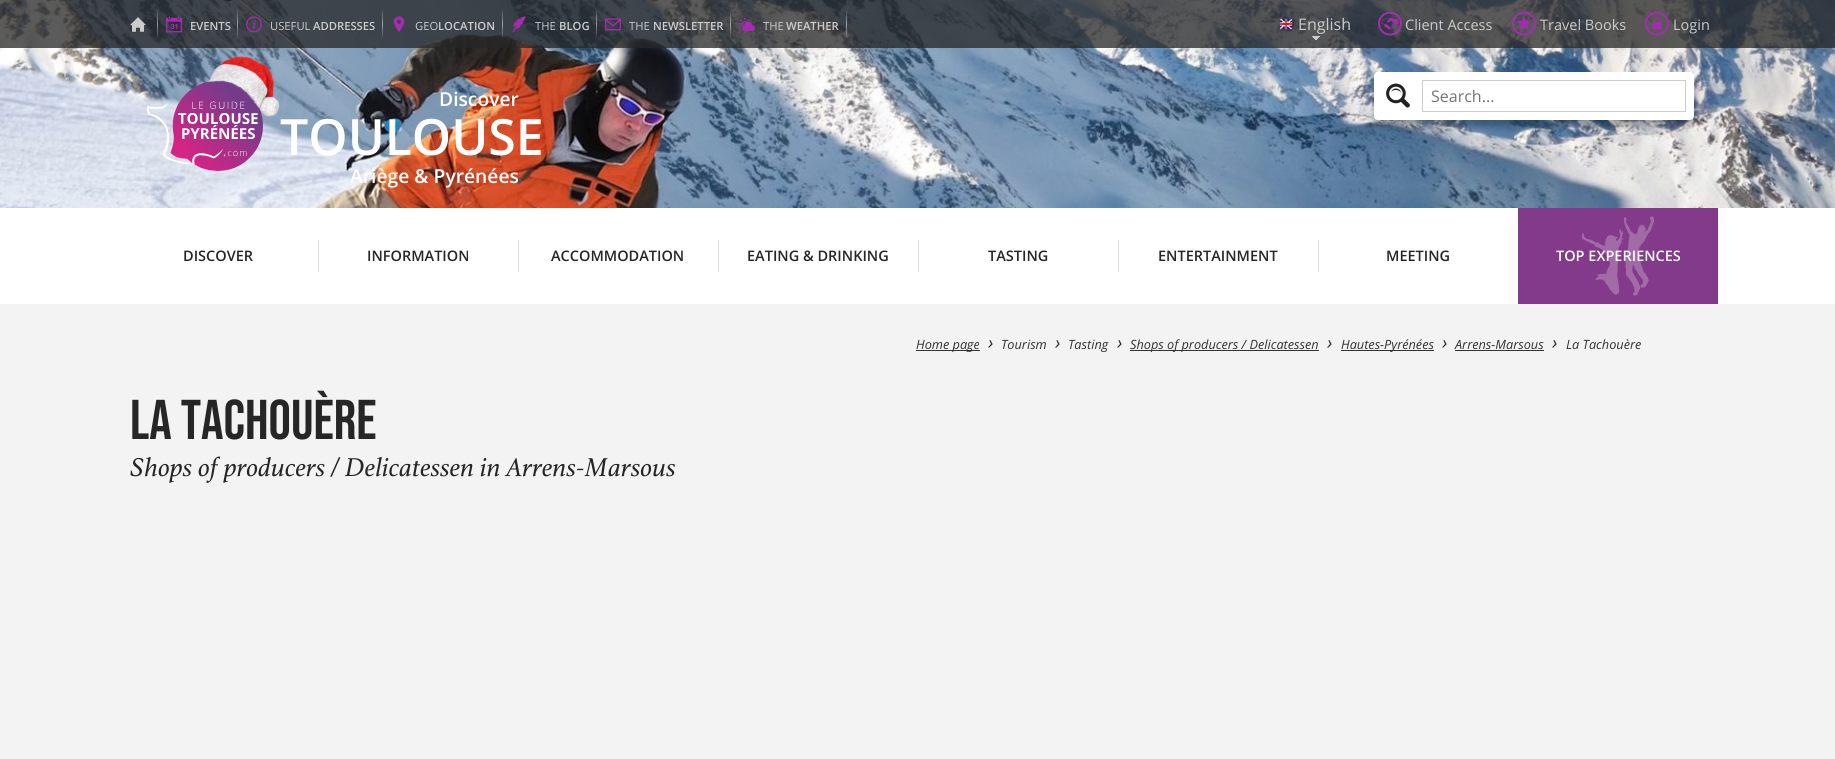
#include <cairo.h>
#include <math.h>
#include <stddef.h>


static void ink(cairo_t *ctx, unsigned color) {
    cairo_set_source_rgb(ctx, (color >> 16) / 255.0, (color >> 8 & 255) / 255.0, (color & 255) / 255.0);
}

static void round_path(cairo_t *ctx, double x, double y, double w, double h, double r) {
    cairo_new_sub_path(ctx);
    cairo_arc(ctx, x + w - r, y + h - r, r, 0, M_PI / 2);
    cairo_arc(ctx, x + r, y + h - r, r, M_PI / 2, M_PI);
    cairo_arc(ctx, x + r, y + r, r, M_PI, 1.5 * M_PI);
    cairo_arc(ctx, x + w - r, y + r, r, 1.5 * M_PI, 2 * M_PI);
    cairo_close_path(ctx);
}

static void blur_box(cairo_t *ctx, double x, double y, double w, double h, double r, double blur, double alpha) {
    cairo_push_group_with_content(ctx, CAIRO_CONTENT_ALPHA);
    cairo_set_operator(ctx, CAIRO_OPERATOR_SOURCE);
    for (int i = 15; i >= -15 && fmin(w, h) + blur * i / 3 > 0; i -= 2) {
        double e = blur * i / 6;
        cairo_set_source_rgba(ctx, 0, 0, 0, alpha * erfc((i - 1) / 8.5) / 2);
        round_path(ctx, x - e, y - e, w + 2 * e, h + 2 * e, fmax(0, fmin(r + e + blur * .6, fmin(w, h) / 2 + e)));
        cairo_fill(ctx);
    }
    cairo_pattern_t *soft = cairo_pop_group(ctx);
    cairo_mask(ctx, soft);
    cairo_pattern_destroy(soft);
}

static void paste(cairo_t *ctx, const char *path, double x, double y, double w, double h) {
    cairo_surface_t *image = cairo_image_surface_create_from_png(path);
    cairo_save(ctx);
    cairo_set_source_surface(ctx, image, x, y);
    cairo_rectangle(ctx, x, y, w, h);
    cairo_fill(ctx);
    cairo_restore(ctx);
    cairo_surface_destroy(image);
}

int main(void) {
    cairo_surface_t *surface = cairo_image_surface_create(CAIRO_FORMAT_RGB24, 1835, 759);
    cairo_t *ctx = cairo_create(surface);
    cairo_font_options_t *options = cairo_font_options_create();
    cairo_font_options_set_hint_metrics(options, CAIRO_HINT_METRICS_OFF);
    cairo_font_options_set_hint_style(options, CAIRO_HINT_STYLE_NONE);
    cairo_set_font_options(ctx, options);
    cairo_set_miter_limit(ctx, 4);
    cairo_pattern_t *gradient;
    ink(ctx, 0xF3F3F3);
    cairo_paint(ctx);
    paste(ctx, "media/1.png", 0, 0, 1835, 208);
    cairo_set_source_rgba(ctx, 0.149, 0.149, 0.149, 0.75);
    cairo_rectangle(ctx, 0, 0, 1835, 48);
    cairo_fill(ctx);
    paste(ctx, "media/2.png", 130, 17, 16, 15);
    gradient = cairo_pattern_create_linear(158, 8, 158, 40);
    cairo_pattern_add_color_stop_rgba(gradient, 0, 1, 1, 1, 0);
    cairo_pattern_add_color_stop_rgba(gradient, 0.5, 1, 1, 1, 0.5);
    cairo_pattern_add_color_stop_rgba(gradient, 1, 1, 1, 1, 0);
    cairo_set_source(ctx, gradient);
    cairo_pattern_destroy(gradient);
    cairo_rectangle(ctx, 157, 8, 1, 32);
    cairo_fill(ctx);
    paste(ctx, "media/3.png", 166, 16, 16, 17);
    cairo_select_font_face(ctx, "Open Sans SemiBold", CAIRO_FONT_SLANT_NORMAL, CAIRO_FONT_WEIGHT_NORMAL);
    cairo_set_font_size(ctx, 11.25);
    ink(ctx, 0xCCCCCC);
    cairo_move_to(ctx, 190, 30);
    cairo_show_text(ctx, "EVENTS");
    gradient = cairo_pattern_create_linear(238, 8, 238, 40);
    cairo_pattern_add_color_stop_rgba(gradient, 0, 1, 1, 1, 0);
    cairo_pattern_add_color_stop_rgba(gradient, 0.5, 1, 1, 1, 0.5);
    cairo_pattern_add_color_stop_rgba(gradient, 1, 1, 1, 1, 0);
    cairo_set_source(ctx, gradient);
    cairo_pattern_destroy(gradient);
    cairo_rectangle(ctx, 237, 8, 1, 32);
    cairo_fill(ctx);
    paste(ctx, "media/4.png", 246, 16, 16, 17);
    cairo_select_font_face(ctx, "Open Sans", CAIRO_FONT_SLANT_NORMAL, CAIRO_FONT_WEIGHT_NORMAL);
    ink(ctx, 0xCCCCCC);
    cairo_move_to(ctx, 270, 30);
    cairo_show_text(ctx, "USEFUL");
    cairo_select_font_face(ctx, "Open Sans SemiBold", CAIRO_FONT_SLANT_NORMAL, CAIRO_FONT_WEIGHT_NORMAL);
    cairo_move_to(ctx, 313, 30);
    cairo_show_text(ctx, "ADDRESSES");
    gradient = cairo_pattern_create_linear(383, 8, 383, 40);
    cairo_pattern_add_color_stop_rgba(gradient, 0, 0.239, 0.263, 0.294, 1);
    cairo_pattern_add_color_stop_rgba(gradient, 0.5, 0.62, 0.631, 0.647, 1);
    cairo_pattern_add_color_stop_rgba(gradient, 1, 0.239, 0.263, 0.294, 1);
    cairo_set_source(ctx, gradient);
    cairo_pattern_destroy(gradient);
    cairo_rectangle(ctx, 382, 8, 1, 32);
    cairo_fill(ctx);
    paste(ctx, "media/5.png", 393, 16, 12, 17);
    cairo_select_font_face(ctx, "Open Sans", CAIRO_FONT_SLANT_NORMAL, CAIRO_FONT_WEIGHT_NORMAL);
    ink(ctx, 0xCCCCCC);
    cairo_move_to(ctx, 415, 30);
    cairo_show_text(ctx, "GEO");
    cairo_select_font_face(ctx, "Open Sans SemiBold", CAIRO_FONT_SLANT_NORMAL, CAIRO_FONT_WEIGHT_NORMAL);
    cairo_move_to(ctx, 438, 30);
    cairo_show_text(ctx, "LOCATION");
    gradient = cairo_pattern_create_linear(503, 8, 503, 40);
    cairo_pattern_add_color_stop_rgba(gradient, 0, 1, 1, 1, 0);
    cairo_pattern_add_color_stop_rgba(gradient, 0.5, 1, 1, 1, 0.5);
    cairo_pattern_add_color_stop_rgba(gradient, 1, 1, 1, 1, 0);
    cairo_set_source(ctx, gradient);
    cairo_pattern_destroy(gradient);
    cairo_rectangle(ctx, 502, 8, 1, 32);
    cairo_fill(ctx);
    paste(ctx, "media/6.png", 512, 16, 14, 17);
    cairo_select_font_face(ctx, "Open Sans", CAIRO_FONT_SLANT_NORMAL, CAIRO_FONT_WEIGHT_NORMAL);
    ink(ctx, 0xCCCCCC);
    cairo_move_to(ctx, 535, 30);
    cairo_show_text(ctx, "THE");
    cairo_select_font_face(ctx, "Open Sans SemiBold", CAIRO_FONT_SLANT_NORMAL, CAIRO_FONT_WEIGHT_NORMAL);
    cairo_move_to(ctx, 559, 30);
    cairo_show_text(ctx, "BLOG");
    gradient = cairo_pattern_create_linear(597, 8, 597, 40);
    cairo_pattern_add_color_stop_rgba(gradient, 0, 1, 1, 1, 0);
    cairo_pattern_add_color_stop_rgba(gradient, 0.5, 1, 1, 1, 0.5);
    cairo_pattern_add_color_stop_rgba(gradient, 1, 1, 1, 1, 0);
    cairo_set_source(ctx, gradient);
    cairo_pattern_destroy(gradient);
    cairo_rectangle(ctx, 596, 8, 1, 32);
    cairo_fill(ctx);
    paste(ctx, "media/7.png", 605, 18, 16, 13);
    cairo_select_font_face(ctx, "Open Sans", CAIRO_FONT_SLANT_NORMAL, CAIRO_FONT_WEIGHT_NORMAL);
    ink(ctx, 0xCCCCCC);
    cairo_move_to(ctx, 629, 30);
    cairo_show_text(ctx, "THE");
    cairo_select_font_face(ctx, "Open Sans SemiBold", CAIRO_FONT_SLANT_NORMAL, CAIRO_FONT_WEIGHT_NORMAL);
    cairo_move_to(ctx, 653, 30);
    cairo_show_text(ctx, "NEWSLETTER");
    gradient = cairo_pattern_create_linear(731, 8, 731, 40);
    cairo_pattern_add_color_stop_rgba(gradient, 0, 1, 1, 1, 0);
    cairo_pattern_add_color_stop_rgba(gradient, 0.5, 1, 1, 1, 0.5);
    cairo_pattern_add_color_stop_rgba(gradient, 1, 1, 1, 1, 0);
    cairo_set_source(ctx, gradient);
    cairo_pattern_destroy(gradient);
    cairo_rectangle(ctx, 730, 8, 1, 32);
    cairo_fill(ctx);
    paste(ctx, "media/8.png", 739, 17, 16, 15);
    cairo_select_font_face(ctx, "Open Sans", CAIRO_FONT_SLANT_NORMAL, CAIRO_FONT_WEIGHT_NORMAL);
    ink(ctx, 0xCCCCCC);
    cairo_move_to(ctx, 763, 30);
    cairo_show_text(ctx, "THE");
    cairo_select_font_face(ctx, "Open Sans SemiBold", CAIRO_FONT_SLANT_NORMAL, CAIRO_FONT_WEIGHT_NORMAL);
    cairo_move_to(ctx, 786, 30);
    cairo_show_text(ctx, "WEATHER");
    gradient = cairo_pattern_create_linear(847, 8, 847, 40);
    cairo_pattern_add_color_stop_rgba(gradient, 0, 1, 1, 1, 0);
    cairo_pattern_add_color_stop_rgba(gradient, 0.5, 1, 1, 1, 0.5);
    cairo_pattern_add_color_stop_rgba(gradient, 1, 1, 1, 1, 0);
    cairo_set_source(ctx, gradient);
    cairo_pattern_destroy(gradient);
    cairo_rectangle(ctx, 846, 8, 1, 32);
    cairo_fill(ctx);
    paste(ctx, "media/9.png", 1312, 36, 8, 4);
    paste(ctx, "media/10.png", 1280, 19, 12, 10);
    cairo_select_font_face(ctx, "Open Sans", CAIRO_FONT_SLANT_NORMAL, CAIRO_FONT_WEIGHT_NORMAL);
    cairo_set_font_size(ctx, 16);
    ink(ctx, 0xCCCCCC);
    cairo_move_to(ctx, 1298, 30);
    cairo_show_text(ctx, "English");
    paste(ctx, "media/11.png", 1378, 11, 24, 25);
    cairo_set_font_size(ctx, 14.5);
    cairo_move_to(ctx, 1405, 30);
    cairo_show_text(ctx, "Client Access");
    paste(ctx, "media/12.png", 1512, 11, 24, 25);
    cairo_move_to(ctx, 1540, 30);
    cairo_show_text(ctx, "Travel Books");
    paste(ctx, "media/13.png", 1645, 11, 24, 25);
    cairo_move_to(ctx, 1673, 30);
    cairo_show_text(ctx, "Login");
    paste(ctx, "media/14.png", 147, 56, 133, 115);
    cairo_select_font_face(ctx, "Open Sans SemiBold", CAIRO_FONT_SLANT_NORMAL, CAIRO_FONT_WEIGHT_NORMAL);
    cairo_set_font_size(ctx, 19.25);
    ink(ctx, 0xFFFFFF);
    cairo_move_to(ctx, 439, 106);
    cairo_show_text(ctx, "Discover");
    cairo_set_font_size(ctx, 50);
    cairo_move_to(ctx, 280, 155);
    cairo_show_text(ctx, "TOULOUSE");
    cairo_set_font_size(ctx, 19.25);
    cairo_move_to(ctx, 350, 183);
    cairo_show_text(ctx, "Ariège & Pyrénées");
    ink(ctx, 0x000000);
    blur_box(ctx, 1374, 78, 320, 48, 4, 3, 0.25);
    ink(ctx, 0xFFFFFF);
    round_path(ctx, 1374, 72, 320, 48, 4);
    cairo_fill(ctx);
    paste(ctx, "media/15.png", 1386, 83, 24, 25);
    cairo_rectangle(ctx, 1422.5, 80.5, 263, 31);
    ink(ctx, 0xCCCCCC);
    cairo_set_line_width(ctx, 1);
    cairo_stroke(ctx);
    cairo_select_font_face(ctx, "Open Sans", CAIRO_FONT_SLANT_NORMAL, CAIRO_FONT_WEIGHT_NORMAL);
    cairo_set_font_size(ctx, 16);
    ink(ctx, 0x757575);
    cairo_move_to(ctx, 1431, 102);
    cairo_show_text(ctx, "Search...");
    ink(ctx, 0xFFFFFF);
    cairo_rectangle(ctx, 0, 208, 1835, 96);
    cairo_fill(ctx);
    cairo_select_font_face(ctx, "Open Sans SemiBold", CAIRO_FONT_SLANT_NORMAL, CAIRO_FONT_WEIGHT_NORMAL);
    cairo_set_font_size(ctx, 14.5);
    ink(ctx, 0x262626);
    cairo_move_to(ctx, 183, 261);
    cairo_show_text(ctx, "DISCOVER");
    ink(ctx, 0xDDDDDD);
    cairo_rectangle(ctx, 318, 240, 1, 32);
    cairo_fill(ctx);
    ink(ctx, 0x262626);
    cairo_move_to(ctx, 367, 261);
    cairo_show_text(ctx, "INFORMATION");
    ink(ctx, 0xDDDDDD);
    cairo_rectangle(ctx, 518, 240, 1, 32);
    cairo_fill(ctx);
    ink(ctx, 0x262626);
    cairo_move_to(ctx, 551, 261);
    cairo_show_text(ctx, "ACCOMMODATION");
    ink(ctx, 0xDDDDDD);
    cairo_rectangle(ctx, 718, 240, 1, 32);
    cairo_fill(ctx);
    ink(ctx, 0x262626);
    cairo_move_to(ctx, 747, 261);
    cairo_show_text(ctx, "EATING & DRINKING");
    ink(ctx, 0xDDDDDD);
    cairo_rectangle(ctx, 918, 240, 1, 32);
    cairo_fill(ctx);
    ink(ctx, 0x262626);
    cairo_move_to(ctx, 988, 261);
    cairo_show_text(ctx, "TASTING");
    ink(ctx, 0xDDDDDD);
    cairo_rectangle(ctx, 1118, 240, 1, 32);
    cairo_fill(ctx);
    ink(ctx, 0x262626);
    cairo_move_to(ctx, 1158, 261);
    cairo_show_text(ctx, "ENTERTAINMENT");
    ink(ctx, 0xDDDDDD);
    cairo_rectangle(ctx, 1318, 240, 1, 32);
    cairo_fill(ctx);
    ink(ctx, 0x262626);
    cairo_move_to(ctx, 1386, 261);
    cairo_show_text(ctx, "MEETING");
    ink(ctx, 0x833A8A);
    cairo_rectangle(ctx, 1518, 208, 200, 96);
    cairo_fill(ctx);
    ink(ctx, 0xFFFFFF);
    cairo_move_to(ctx, 1556, 261);
    cairo_show_text(ctx, "TOP EXPERIENCES");
    paste(ctx, "media/16.png", 1582, 216, 72, 80);
    ink(ctx, 0x333333);
    cairo_rectangle(ctx, 916, 350, 64, 1);
    cairo_fill(ctx);
    cairo_select_font_face(ctx, "Open Sans", CAIRO_FONT_SLANT_ITALIC, CAIRO_FONT_WEIGHT_NORMAL);
    cairo_set_font_size(ctx, 12.75);
    cairo_move_to(ctx, 916, 349);
    cairo_show_text(ctx, "Home page");
    cairo_set_font_size(ctx, 19.25);
    cairo_move_to(ctx, 988, 349);
    cairo_show_text(ctx, "›");
    cairo_set_font_size(ctx, 12.75);
    cairo_move_to(ctx, 1001, 349);
    cairo_show_text(ctx, "Tourism");
    cairo_set_font_size(ctx, 19.25);
    cairo_move_to(ctx, 1055, 349);
    cairo_show_text(ctx, "›");
    cairo_set_font_size(ctx, 12.75);
    cairo_move_to(ctx, 1068, 349);
    cairo_show_text(ctx, "Tasting");
    cairo_set_font_size(ctx, 19.25);
    cairo_move_to(ctx, 1117, 349);
    cairo_show_text(ctx, "›");
    cairo_rectangle(ctx, 1130, 350, 189, 1);
    cairo_fill(ctx);
    cairo_set_font_size(ctx, 12.75);
    cairo_move_to(ctx, 1130, 349);
    cairo_show_text(ctx, "Shops of producers / Delicatessen");
    cairo_set_font_size(ctx, 19.25);
    cairo_move_to(ctx, 1327, 349);
    cairo_show_text(ctx, "›");
    cairo_rectangle(ctx, 1341, 350, 93, 1);
    cairo_fill(ctx);
    cairo_set_font_size(ctx, 12.75);
    cairo_move_to(ctx, 1341, 349);
    cairo_show_text(ctx, "Hautes-Pyrénées");
    cairo_set_font_size(ctx, 19.25);
    cairo_move_to(ctx, 1442, 349);
    cairo_show_text(ctx, "›");
    cairo_set_font_size(ctx, 12.75);
    cairo_move_to(ctx, 1455, 349);
    cairo_show_text(ctx, "Arrens-Marsous");
    cairo_rectangle(ctx, 1455, 350, 89, 1);
    cairo_fill(ctx);
    cairo_set_font_size(ctx, 19.25);
    cairo_move_to(ctx, 1552, 349);
    cairo_show_text(ctx, "›");
    cairo_set_font_size(ctx, 12.75);
    cairo_move_to(ctx, 1566, 349);
    cairo_show_text(ctx, "La Tachouère");
    cairo_select_font_face(ctx, "Bebas Neue", CAIRO_FONT_SLANT_NORMAL, CAIRO_FONT_WEIGHT_NORMAL);
    cairo_set_font_size(ctx, 56);
    ink(ctx, 0x262626);
    cairo_move_to(ctx, 130, 439);
    cairo_show_text(ctx, "La Tachouère");
    cairo_select_font_face(ctx, "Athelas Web", CAIRO_FONT_SLANT_ITALIC, CAIRO_FONT_WEIGHT_NORMAL);
    cairo_set_font_size(ctx, 28);
    cairo_move_to(ctx, 130, 476);
    cairo_show_text(ctx, "Shops of producers / Delicatessen in Arrens-Marsous");
    cairo_surface_write_to_png(surface, "image.png");
    cairo_font_options_destroy(options);
    cairo_destroy(ctx);
    cairo_surface_destroy(surface);
    return 0;
}
